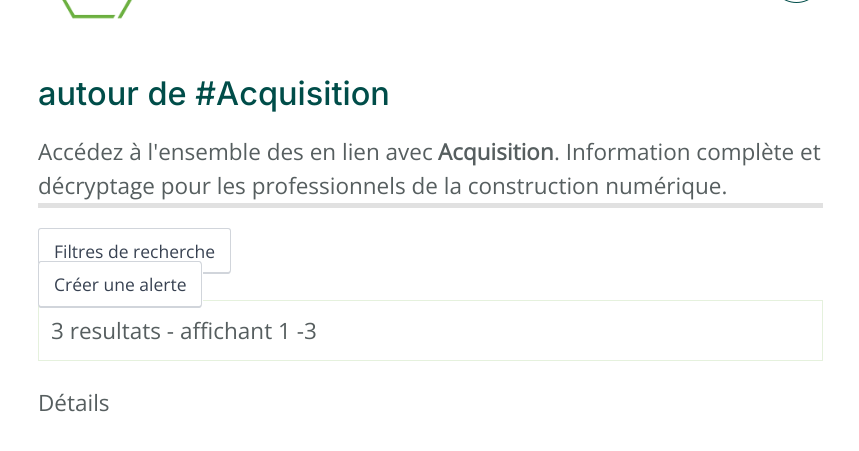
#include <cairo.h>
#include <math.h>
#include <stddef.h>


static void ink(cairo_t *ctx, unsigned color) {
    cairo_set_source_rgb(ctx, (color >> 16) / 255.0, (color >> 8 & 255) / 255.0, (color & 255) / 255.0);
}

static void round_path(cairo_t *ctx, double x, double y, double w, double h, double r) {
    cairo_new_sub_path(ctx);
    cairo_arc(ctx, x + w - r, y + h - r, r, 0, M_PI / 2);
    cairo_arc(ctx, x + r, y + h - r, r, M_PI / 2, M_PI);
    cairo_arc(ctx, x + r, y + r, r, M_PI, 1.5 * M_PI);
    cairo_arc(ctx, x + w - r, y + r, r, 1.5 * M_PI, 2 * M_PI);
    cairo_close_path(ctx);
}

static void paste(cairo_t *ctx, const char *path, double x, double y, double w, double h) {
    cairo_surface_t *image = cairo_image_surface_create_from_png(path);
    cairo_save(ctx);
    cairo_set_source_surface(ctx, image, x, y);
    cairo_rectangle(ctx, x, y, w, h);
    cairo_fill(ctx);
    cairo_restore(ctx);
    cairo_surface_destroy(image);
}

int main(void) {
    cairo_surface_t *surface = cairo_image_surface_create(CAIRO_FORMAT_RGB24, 859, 451);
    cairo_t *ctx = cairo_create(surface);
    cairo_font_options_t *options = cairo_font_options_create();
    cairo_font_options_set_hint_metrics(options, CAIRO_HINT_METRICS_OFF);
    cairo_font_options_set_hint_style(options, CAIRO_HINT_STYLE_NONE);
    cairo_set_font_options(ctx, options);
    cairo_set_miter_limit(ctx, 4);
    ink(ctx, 0xFFFFFF);
    cairo_paint(ctx);
    round_path(ctx, 770.5, -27.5, 52, 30, 26);
    ink(ctx, 0x004D49);
    cairo_set_line_width(ctx, 1);
    cairo_stroke(ctx);
    paste(ctx, "media/1.png", 62, 0, 71, 19);
    ink(ctx, 0xE1E1E1);
    cairo_rectangle(ctx, 38, 203, 785, 5);
    cairo_fill(ctx);
    cairo_select_font_face(ctx, "Inter Medium", CAIRO_FONT_SLANT_NORMAL, CAIRO_FONT_WEIGHT_NORMAL);
    cairo_set_font_size(ctx, 32.5);
    ink(ctx, 0x004D49);
    cairo_move_to(ctx, 38, 105);
    cairo_show_text(ctx, "autour de #Acquisition");
    cairo_select_font_face(ctx, "Open Sans", CAIRO_FONT_SLANT_NORMAL, CAIRO_FONT_WEIGHT_NORMAL);
    cairo_set_font_size(ctx, 22.5);
    ink(ctx, 0x565E5F);
    cairo_move_to(ctx, 38, 160);
    cairo_show_text(ctx, "Accédez à l'ensemble des en lien avec");
    cairo_select_font_face(ctx, "Open Sans", CAIRO_FONT_SLANT_NORMAL, CAIRO_FONT_WEIGHT_BOLD);
    cairo_move_to(ctx, 438, 160);
    cairo_show_text(ctx, "Acquisition");
    cairo_select_font_face(ctx, "Open Sans", CAIRO_FONT_SLANT_NORMAL, CAIRO_FONT_WEIGHT_NORMAL);
    cairo_move_to(ctx, 554, 160);
    cairo_show_text(ctx, ". Information complète et");
    cairo_move_to(ctx, 38, 194);
    cairo_show_text(ctx, "décryptage pour les professionnels de la construction numérique.");
    ink(ctx, 0xD1D5DB);
    cairo_set_fill_rule(ctx, CAIRO_FILL_RULE_EVEN_ODD);
    cairo_new_path(ctx);
    cairo_move_to(ctx, 54, 228);
    cairo_line_to(ctx, 228, 228);
    cairo_curve_to(ctx, 230, 228, 231, 229, 231, 231);
    cairo_line_to(ctx, 231, 270);
    cairo_curve_to(ctx, 231, 272, 230, 274, 228, 274);
    cairo_line_to(ctx, 54, 274);
    cairo_close_path(ctx);
    cairo_move_to(ctx, 54, 229);
    cairo_line_to(ctx, 228, 229);
    cairo_curve_to(ctx, 229, 229, 230, 230, 230, 231);
    cairo_line_to(ctx, 230, 270);
    cairo_curve_to(ctx, 230, 271, 229, 272, 228, 272);
    cairo_line_to(ctx, 54, 272);
    cairo_close_path(ctx);
    cairo_fill(ctx);
    cairo_set_font_size(ctx, 17.5);
    ink(ctx, 0x374151);
    cairo_move_to(ctx, 54, 258);
    cairo_show_text(ctx, "Filtres de recherche");
    ink(ctx, 0xD1D5DB);
    cairo_new_path(ctx);
    cairo_move_to(ctx, 41, 228);
    cairo_line_to(ctx, 54, 228);
    cairo_line_to(ctx, 54, 274);
    cairo_line_to(ctx, 41, 274);
    cairo_curve_to(ctx, 39, 274, 38, 272, 38, 270);
    cairo_line_to(ctx, 38, 231);
    cairo_curve_to(ctx, 38, 229, 39, 228, 41, 228);
    cairo_close_path(ctx);
    cairo_move_to(ctx, 41, 229);
    cairo_line_to(ctx, 54, 229);
    cairo_line_to(ctx, 54, 272);
    cairo_line_to(ctx, 41, 272);
    cairo_curve_to(ctx, 40, 272, 39, 271, 39, 270);
    cairo_line_to(ctx, 39, 231);
    cairo_curve_to(ctx, 39, 230, 40, 229, 41, 229);
    cairo_close_path(ctx);
    cairo_fill(ctx);
    cairo_rectangle(ctx, 38.5, 300.5, 784, 60);
    ink(ctx, 0xE5F1DD);
    cairo_stroke(ctx);
    ink(ctx, 0xFFFFFF);
    cairo_new_path(ctx);
    cairo_move_to(ctx, 54, 261);
    cairo_line_to(ctx, 199, 261);
    cairo_curve_to(ctx, 201, 261, 203, 263, 203, 265);
    cairo_line_to(ctx, 203, 304);
    cairo_curve_to(ctx, 203, 306, 201, 308, 199, 308);
    cairo_line_to(ctx, 54, 308);
    cairo_close_path(ctx);
    cairo_fill(ctx);
    ink(ctx, 0xD1D5DB);
    cairo_new_path(ctx);
    cairo_move_to(ctx, 54, 261);
    cairo_line_to(ctx, 199, 261);
    cairo_curve_to(ctx, 201, 261, 202, 263, 202, 265);
    cairo_line_to(ctx, 202, 304);
    cairo_curve_to(ctx, 202, 306, 201, 308, 199, 308);
    cairo_line_to(ctx, 54, 308);
    cairo_close_path(ctx);
    cairo_move_to(ctx, 54, 262);
    cairo_line_to(ctx, 199, 262);
    cairo_curve_to(ctx, 200, 262, 201, 264, 201, 265);
    cairo_line_to(ctx, 201, 304);
    cairo_curve_to(ctx, 201, 305, 200, 306, 199, 306);
    cairo_line_to(ctx, 54, 306);
    cairo_close_path(ctx);
    cairo_fill(ctx);
    ink(ctx, 0x374151);
    cairo_move_to(ctx, 54, 291);
    cairo_show_text(ctx, "Créer une alerte");
    ink(ctx, 0xFFFFFF);
    cairo_new_path(ctx);
    cairo_move_to(ctx, 42, 261);
    cairo_line_to(ctx, 54, 261);
    cairo_line_to(ctx, 54, 308);
    cairo_line_to(ctx, 42, 308);
    cairo_curve_to(ctx, 40, 308, 38, 306, 38, 304);
    cairo_line_to(ctx, 38, 265);
    cairo_curve_to(ctx, 38, 263, 40, 261, 42, 261);
    cairo_close_path(ctx);
    cairo_fill(ctx);
    ink(ctx, 0xD1D5DB);
    cairo_new_path(ctx);
    cairo_move_to(ctx, 41, 261);
    cairo_line_to(ctx, 54, 261);
    cairo_line_to(ctx, 54, 308);
    cairo_line_to(ctx, 41, 308);
    cairo_curve_to(ctx, 39, 308, 38, 306, 38, 304);
    cairo_line_to(ctx, 38, 265);
    cairo_curve_to(ctx, 38, 263, 39, 261, 41, 261);
    cairo_close_path(ctx);
    cairo_move_to(ctx, 41, 262);
    cairo_line_to(ctx, 54, 262);
    cairo_line_to(ctx, 54, 306);
    cairo_line_to(ctx, 41, 306);
    cairo_curve_to(ctx, 40, 306, 39, 305, 39, 304);
    cairo_line_to(ctx, 39, 265);
    cairo_curve_to(ctx, 39, 264, 40, 262, 41, 262);
    cairo_close_path(ctx);
    cairo_fill(ctx);
    cairo_set_font_size(ctx, 22.5);
    ink(ctx, 0x565E5F);
    cairo_move_to(ctx, 51, 339);
    cairo_show_text(ctx, "3 resultats - affichant 1 -3");
    cairo_move_to(ctx, 38, 411);
    cairo_show_text(ctx, "Détails");
    cairo_surface_write_to_png(surface, "image.png");
    cairo_font_options_destroy(options);
    cairo_destroy(ctx);
    cairo_surface_destroy(surface);
    return 0;
}
